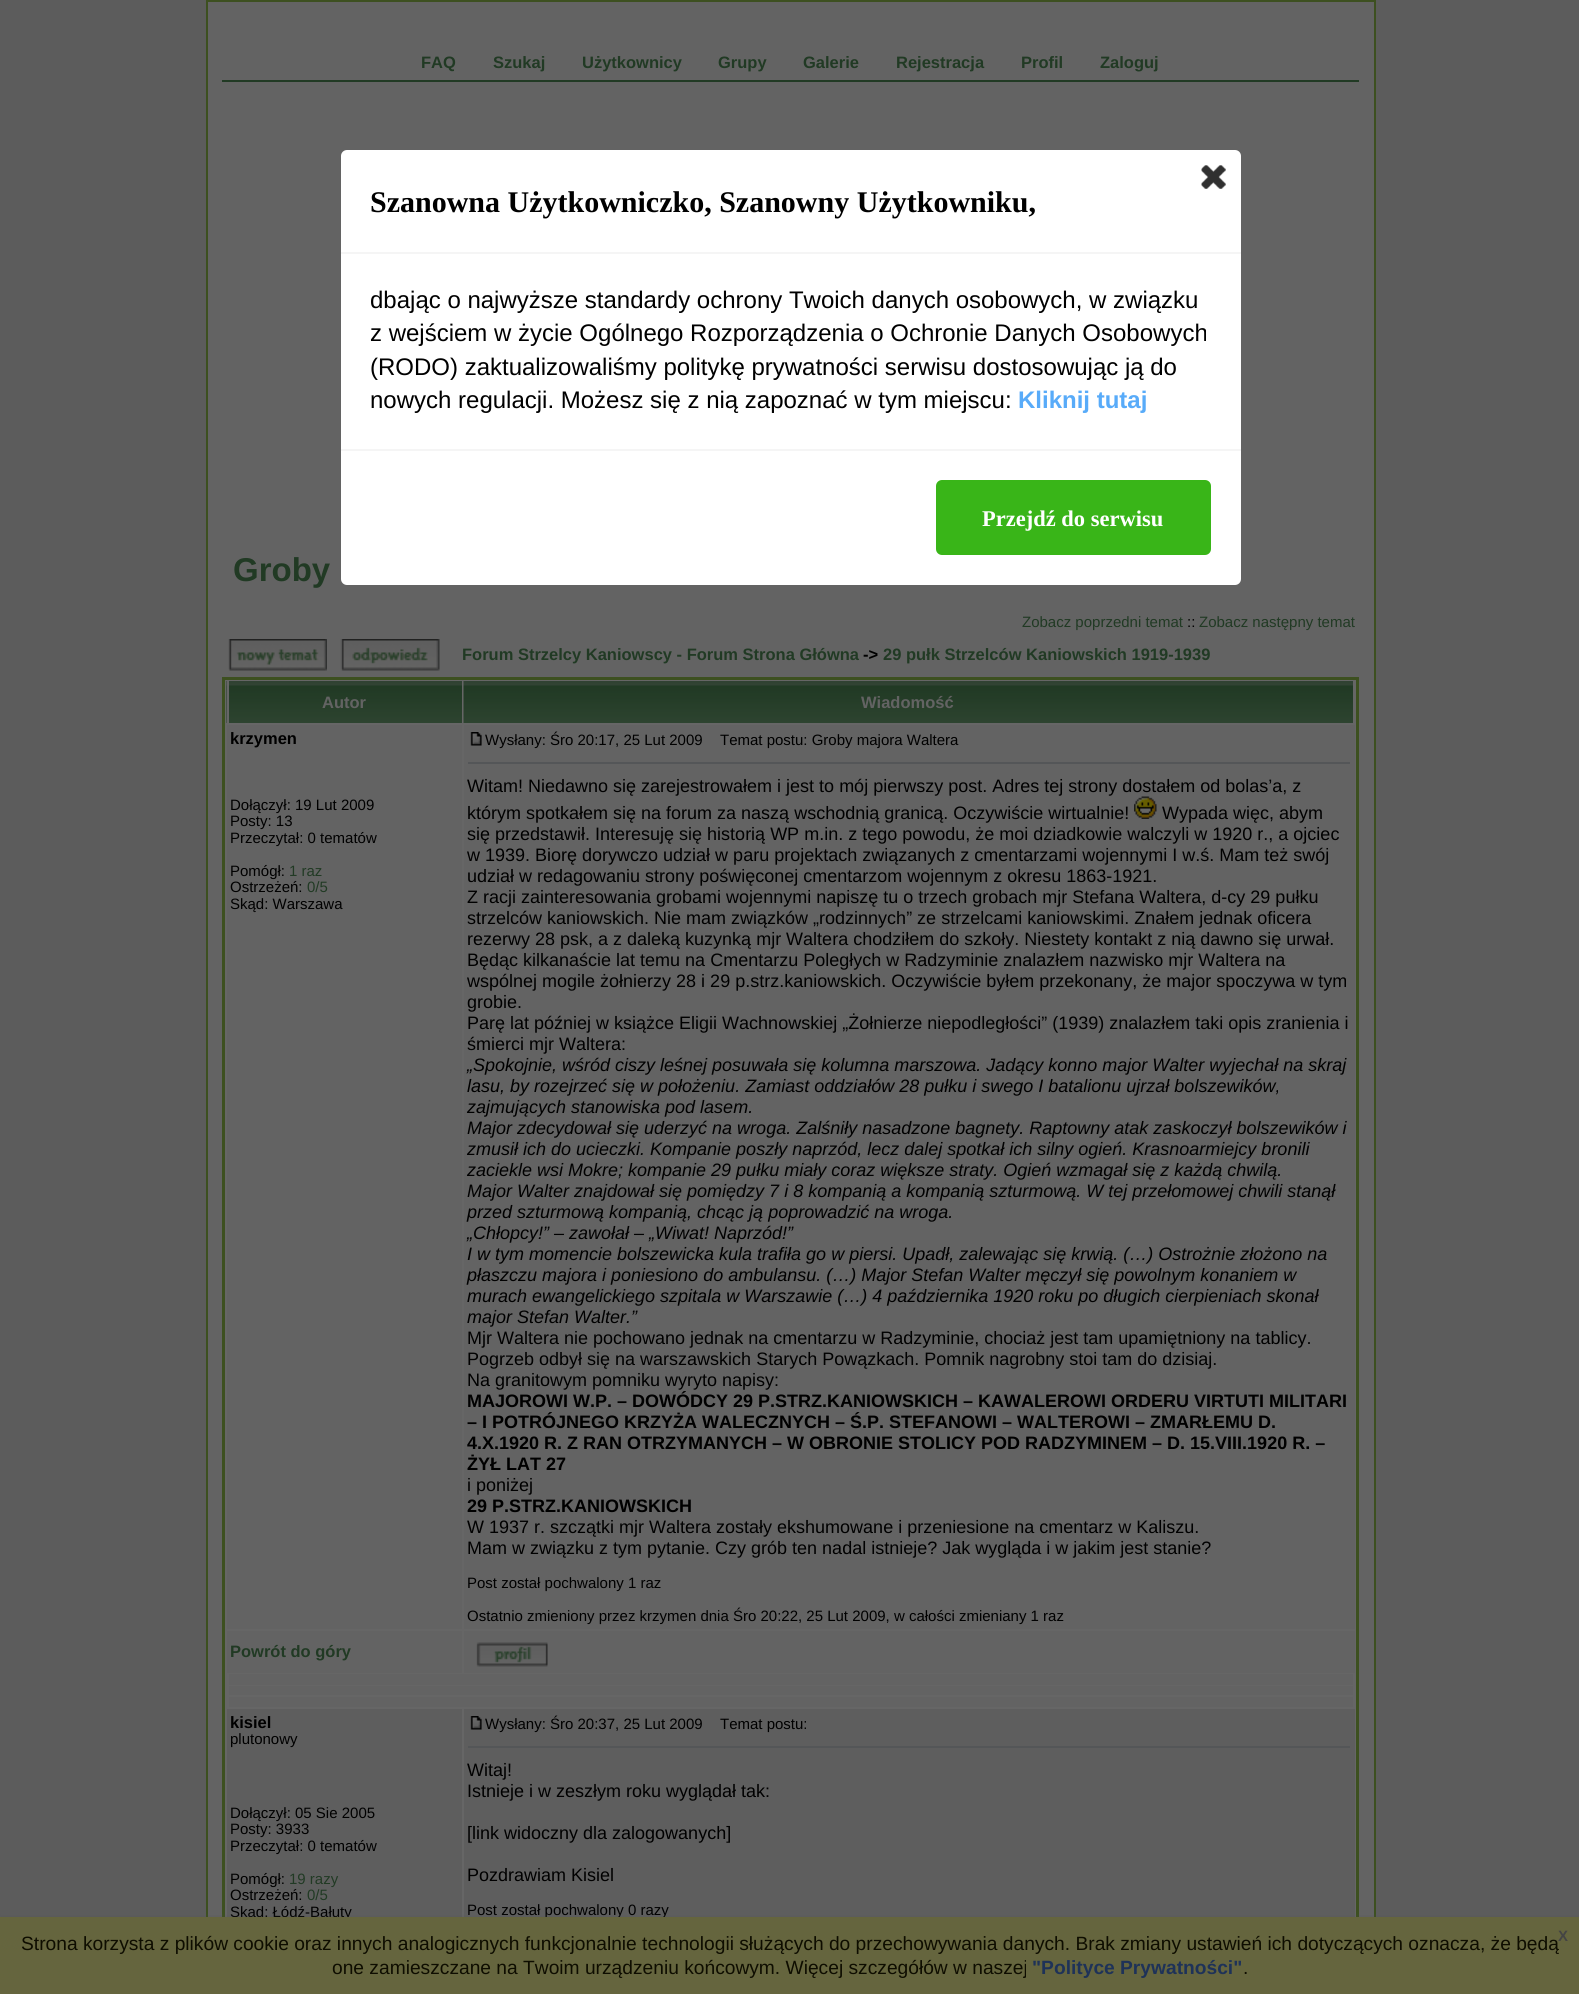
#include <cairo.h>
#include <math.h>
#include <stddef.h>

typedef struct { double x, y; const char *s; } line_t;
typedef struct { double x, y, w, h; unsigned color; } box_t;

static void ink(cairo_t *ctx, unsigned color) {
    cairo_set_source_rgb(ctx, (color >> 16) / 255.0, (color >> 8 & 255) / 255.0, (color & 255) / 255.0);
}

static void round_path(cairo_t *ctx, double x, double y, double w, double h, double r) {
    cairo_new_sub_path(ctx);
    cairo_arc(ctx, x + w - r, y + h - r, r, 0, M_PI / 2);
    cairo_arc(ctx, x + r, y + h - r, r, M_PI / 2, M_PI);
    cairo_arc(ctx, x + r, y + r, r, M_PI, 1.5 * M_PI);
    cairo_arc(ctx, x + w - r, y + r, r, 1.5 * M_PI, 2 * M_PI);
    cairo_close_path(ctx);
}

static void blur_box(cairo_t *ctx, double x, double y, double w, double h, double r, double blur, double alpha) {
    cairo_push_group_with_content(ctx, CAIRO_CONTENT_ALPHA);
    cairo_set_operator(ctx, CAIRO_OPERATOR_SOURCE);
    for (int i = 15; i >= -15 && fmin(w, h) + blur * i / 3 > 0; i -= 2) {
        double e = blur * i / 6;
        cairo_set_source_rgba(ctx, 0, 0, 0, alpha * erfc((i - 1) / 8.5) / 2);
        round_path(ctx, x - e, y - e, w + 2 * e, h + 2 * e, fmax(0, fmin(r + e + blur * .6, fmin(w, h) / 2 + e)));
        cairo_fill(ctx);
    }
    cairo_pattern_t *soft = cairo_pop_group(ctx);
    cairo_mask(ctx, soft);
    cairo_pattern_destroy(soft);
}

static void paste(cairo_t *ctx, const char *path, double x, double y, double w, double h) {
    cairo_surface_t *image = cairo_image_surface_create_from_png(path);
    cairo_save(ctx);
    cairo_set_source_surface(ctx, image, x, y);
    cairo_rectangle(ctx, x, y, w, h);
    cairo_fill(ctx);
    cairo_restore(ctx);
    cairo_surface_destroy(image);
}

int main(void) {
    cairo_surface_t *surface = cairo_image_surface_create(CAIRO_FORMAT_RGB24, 1579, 1994);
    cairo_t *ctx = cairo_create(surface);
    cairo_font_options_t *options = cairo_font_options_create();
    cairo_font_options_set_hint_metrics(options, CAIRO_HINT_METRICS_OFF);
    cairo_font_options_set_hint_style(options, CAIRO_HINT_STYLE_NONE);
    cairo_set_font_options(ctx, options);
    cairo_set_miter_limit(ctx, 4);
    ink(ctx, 0x5C5C5C);
    cairo_paint(ctx);
    ink(ctx, 0x636363);
    cairo_rectangle(ctx, 208, 2, 1166, 1915);
    cairo_fill(ctx);
    cairo_rectangle(ctx, 207, 1, 1168, 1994);
    ink(ctx, 0x3D5020);
    cairo_stroke(ctx);
    ink(ctx, 0x213A24);
    cairo_rectangle(ctx, 222, 80, 1137, 2);
    cairo_fill(ctx);
    cairo_select_font_face(ctx, "Liberation Sans", CAIRO_FONT_SLANT_NORMAL, CAIRO_FONT_WEIGHT_BOLD);
    cairo_set_font_size(ctx, 16.5);
    {
        static const line_t items[] = {
            {421, 68, "FAQ"},
            {493, 68, "Szukaj"},
            {582, 68, "Użytkownicy"},
            {718, 68, "Grupy"},
            {803, 68, "Galerie"},
            {896, 68, "Rejestracja"},
            {1021, 68, "Profil"},
            {1100, 68, "Zaloguj"},
        };
        for (size_t i = 0; i < sizeof items / sizeof *items; i++) {
            cairo_move_to(ctx, items[i].x, items[i].y);
            cairo_show_text(ctx, items[i].s);
        }
    }
    cairo_set_font_size(ctx, 33);
    cairo_move_to(ctx, 233, 581);
    cairo_show_text(ctx, "Groby");
    cairo_select_font_face(ctx, "Liberation Sans", CAIRO_FONT_SLANT_NORMAL, CAIRO_FONT_WEIGHT_NORMAL);
    cairo_set_font_size(ctx, 15);
    cairo_move_to(ctx, 1022, 627);
    cairo_show_text(ctx, "Zobacz poprzedni temat");
    ink(ctx, 0x000000);
    cairo_move_to(ctx, 1187, 627);
    cairo_show_text(ctx, "::");
    ink(ctx, 0x213A24);
    cairo_move_to(ctx, 1199, 627);
    cairo_show_text(ctx, "Zobacz następny temat");
    paste(ctx, "media/1.png", 228, 639, 99, 32);
    paste(ctx, "media/2.png", 340, 639, 100, 32);
    cairo_select_font_face(ctx, "Liberation Sans", CAIRO_FONT_SLANT_NORMAL, CAIRO_FONT_WEIGHT_BOLD);
    cairo_set_font_size(ctx, 16.5);
    cairo_move_to(ctx, 462, 660);
    cairo_show_text(ctx, "Forum Strzelcy Kaniowscy - Forum Strona Główna");
    ink(ctx, 0x000000);
    cairo_move_to(ctx, 863, 660);
    cairo_show_text(ctx, "->");
    ink(ctx, 0x213A24);
    cairo_move_to(ctx, 883, 660);
    cairo_show_text(ctx, "29 pułk Strzelców Kaniowskich 1919-1939");
    ink(ctx, 0x666666);
    cairo_rectangle(ctx, 225, 680, 1131, 1237);
    cairo_fill(ctx);
    cairo_rectangle(ctx, 223.5, 678.5, 1134, 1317);
    ink(ctx, 0x3D5020);
    cairo_set_line_width(ctx, 3);
    cairo_stroke(ctx);
    paste(ctx, "media/3.png", 226, 681, 236, 42);
    ink(ctx, 0x666666);
    cairo_rectangle(ctx, 227, 681, 2, 42);
    cairo_fill(ctx);
    ink(ctx, 0x636363);
    cairo_move_to(ctx, 322, 708);
    cairo_show_text(ctx, "Autor");
    paste(ctx, "media/4.png", 463, 681, 890, 42);
    cairo_move_to(ctx, 861, 708);
    cairo_show_text(ctx, "Wiadomość");
    cairo_rectangle(ctx, 227, 725, 235, 904);
    cairo_fill(ctx);
    ink(ctx, 0x000000);
    cairo_move_to(ctx, 230, 744);
    cairo_show_text(ctx, "krzymen");
    cairo_select_font_face(ctx, "Liberation Sans", CAIRO_FONT_SLANT_NORMAL, CAIRO_FONT_WEIGHT_NORMAL);
    cairo_set_font_size(ctx, 15);
    {
        static const line_t items[] = {
            {230, 810, "Dołączył: 19 Lut 2009"},
            {230, 826, "Posty: 13"},
            {230, 843, "Przeczytał: 0 tematów"},
            {230, 876, "Pomógł:"},
        };
        for (size_t i = 0; i < sizeof items / sizeof *items; i++) {
            cairo_move_to(ctx, items[i].x, items[i].y);
            cairo_show_text(ctx, items[i].s);
        }
    }
    ink(ctx, 0x213A24);
    cairo_move_to(ctx, 289, 876);
    cairo_show_text(ctx, "1 raz");
    ink(ctx, 0x000000);
    cairo_move_to(ctx, 230, 892);
    cairo_show_text(ctx, "Ostrzeżeń:");
    ink(ctx, 0x213A24);
    cairo_move_to(ctx, 307, 892);
    cairo_show_text(ctx, "0/5");
    ink(ctx, 0x000000);
    cairo_move_to(ctx, 230, 909);
    cairo_show_text(ctx, "Skąd: Warszawa");
    ink(ctx, 0x636363);
    cairo_rectangle(ctx, 464, 725, 891, 904);
    cairo_fill(ctx);
    paste(ctx, "media/5.png", 470, 732, 12, 14);
    ink(ctx, 0x000000);
    cairo_move_to(ctx, 485, 745);
    cairo_show_text(ctx, "Wysłany: Śro 20:17, 25 Lut 2009");
    cairo_move_to(ctx, 720, 745);
    cairo_show_text(ctx, "Temat postu: Groby majora Waltera");
    ink(ctx, 0x545658);
    cairo_rectangle(ctx, 468, 762, 882, 2);
    cairo_fill(ctx);
    cairo_set_font_size(ctx, 18);
    ink(ctx, 0x000000);
    cairo_move_to(ctx, 467, 792);
    cairo_show_text(ctx, "Witam! Niedawno się zarejestrowałem i jest to mój pierwszy post. Adres tej strony dostałem od bolas’a, z");
    cairo_move_to(ctx, 467, 819);
    cairo_show_text(ctx, "którym spotkałem się na forum za naszą wschodnią granicą. Oczywiście wirtualnie!");
    paste(ctx, "media/6.png", 1134, 796, 23, 23);
    {
        static const line_t items[] = {
            {1162, 819, "Wypada więc, abym"},
            {467, 840, "się przedstawił. Interesuję się historią WP m.in. z tego powodu, że moi dziadkowie walczyli w 1920 r., a ojciec"},
            {467, 861, "w 1939. Biorę dorywczo udział w paru projektach związanych z cmentarzami wojennymi I w.ś. Mam też swój"},
            {467, 882, "udział w redagowaniu strony poświęconej cmentarzom wojennym z okresu 1863-1921."},
            {467, 903, "Z racji zainteresowania grobami wojennymi napiszę tu o trzech grobach mjr Stefana Waltera, d-cy 29 pułku"},
            {467, 924, "strzelców kaniowskich. Nie mam związków „rodzinnych” ze strzelcami kaniowskimi. Znałem jednak oficera"},
            {467, 945, "rezerwy 28 psk, a z daleką kuzynką mjr Waltera chodziłem do szkoły. Niestety kontakt z nią dawno się urwał."},
            {467, 966, "Będąc kilkanaście lat temu na Cmentarzu Poległych w Radzyminie znalazłem nazwisko mjr Waltera na"},
            {467, 987, "wspólnej mogile żołnierzy 28 i 29 p.strz.kaniowskich. Oczywiście byłem przekonany, że major spoczywa w tym"},
            {467, 1008, "grobie."},
            {467, 1029, "Parę lat później w książce Eligii Wachnowskiej „Żołnierze niepodległości” (1939) znalazłem taki opis zranienia i"},
            {467, 1050, "śmierci mjr Waltera:"},
        };
        for (size_t i = 0; i < sizeof items / sizeof *items; i++) {
            cairo_move_to(ctx, items[i].x, items[i].y);
            cairo_show_text(ctx, items[i].s);
        }
    }
    cairo_select_font_face(ctx, "Liberation Sans", CAIRO_FONT_SLANT_ITALIC, CAIRO_FONT_WEIGHT_NORMAL);
    {
        static const line_t items[] = {
            {467, 1071, "„Spokojnie, wśród ciszy leśnej posuwała się kolumna marszowa. Jadący konno major Walter wyjechał na skraj"},
            {467, 1092, "lasu, by rozejrzeć się w położeniu. Zamiast oddziałów 28 pułku i swego I batalionu ujrzał bolszewików,"},
            {467, 1113, "zajmujących stanowiska pod lasem."},
            {467, 1134, "Major zdecydował się uderzyć na wroga. Zalśniły nasadzone bagnety. Raptowny atak zaskoczył bolszewików i"},
            {467, 1155, "zmusił ich do ucieczki. Kompanie poszły naprzód, lecz dalej spotkał ich silny ogień. Krasnoarmiejcy bronili"},
            {467, 1176, "zaciekle wsi Mokre; kompanie 29 pułku miały coraz większe straty. Ogień wzmagał się z każdą chwilą."},
            {467, 1197, "Major Walter znajdował się pomiędzy 7 i 8 kompanią a kompanią szturmową. W tej przełomowej chwili stanął"},
            {467, 1218, "przed szturmową kompanią, chcąc ją poprowadzić na wroga."},
            {467, 1239, "„Chłopcy!” – zawołał – „Wiwat! Naprzód!”"},
            {467, 1260, "I w tym momencie bolszewicka kula trafiła go w piersi. Upadł, zalewając się krwią. (…) Ostrożnie złożono na"},
            {467, 1281, "płaszczu majora i poniesiono do ambulansu. (…) Major Stefan Walter męczył się powolnym konaniem w"},
            {467, 1302, "murach ewangelickiego szpitala w Warszawie (…) 4 października 1920 roku po długich cierpieniach skonał"},
            {467, 1323, "major Stefan Walter.”"},
        };
        for (size_t i = 0; i < sizeof items / sizeof *items; i++) {
            cairo_move_to(ctx, items[i].x, items[i].y);
            cairo_show_text(ctx, items[i].s);
        }
    }
    cairo_select_font_face(ctx, "Liberation Sans", CAIRO_FONT_SLANT_NORMAL, CAIRO_FONT_WEIGHT_NORMAL);
    {
        static const line_t items[] = {
            {467, 1344, "Mjr Waltera nie pochowano jednak na cmentarzu w Radzyminie, chociaż jest tam upamiętniony na tablicy."},
            {467, 1365, "Pogrzeb odbył się na warszawskich Starych Powązkach. Pomnik nagrobny stoi tam do dzisiaj."},
            {467, 1386, "Na granitowym pomniku wyryto napisy:"},
        };
        for (size_t i = 0; i < sizeof items / sizeof *items; i++) {
            cairo_move_to(ctx, items[i].x, items[i].y);
            cairo_show_text(ctx, items[i].s);
        }
    }
    cairo_select_font_face(ctx, "Liberation Sans", CAIRO_FONT_SLANT_NORMAL, CAIRO_FONT_WEIGHT_BOLD);
    {
        static const line_t items[] = {
            {467, 1407, "MAJOROWI W.P. – DOWÓDCY 29 P.STRZ.KANIOWSKICH – KAWALEROWI ORDERU VIRTUTI MILITARI"},
            {467, 1428, "– I POTRÓJNEGO KRZYŻA WALECZNYCH – Ś.P. STEFANOWI – WALTEROWI – ZMARŁEMU D."},
            {467, 1449, "4.X.1920 R. Z RAN OTRZYMANYCH – W OBRONIE STOLICY POD RADZYMINEM – D. 15.VIII.1920 R. –"},
            {467, 1470, "ŻYŁ LAT 27"},
        };
        for (size_t i = 0; i < sizeof items / sizeof *items; i++) {
            cairo_move_to(ctx, items[i].x, items[i].y);
            cairo_show_text(ctx, items[i].s);
        }
    }
    cairo_select_font_face(ctx, "Liberation Sans", CAIRO_FONT_SLANT_NORMAL, CAIRO_FONT_WEIGHT_NORMAL);
    cairo_move_to(ctx, 467, 1491);
    cairo_show_text(ctx, "i poniżej");
    cairo_select_font_face(ctx, "Liberation Sans", CAIRO_FONT_SLANT_NORMAL, CAIRO_FONT_WEIGHT_BOLD);
    cairo_move_to(ctx, 467, 1512);
    cairo_show_text(ctx, "29 P.STRZ.KANIOWSKICH");
    cairo_select_font_face(ctx, "Liberation Sans", CAIRO_FONT_SLANT_NORMAL, CAIRO_FONT_WEIGHT_NORMAL);
    cairo_move_to(ctx, 467, 1533);
    cairo_show_text(ctx, "W 1937 r. szczątki mjr Waltera zostały ekshumowane i przeniesione na cmentarz w Kaliszu.");
    cairo_move_to(ctx, 467, 1554);
    cairo_show_text(ctx, "Mam w związku z tym pytanie. Czy grób ten nadal istnieje? Jak wygląda i w jakim jest stanie?");
    cairo_set_font_size(ctx, 15);
    cairo_move_to(ctx, 467, 1588);
    cairo_show_text(ctx, "Post został pochwalony 1 raz");
    cairo_move_to(ctx, 467, 1621);
    cairo_show_text(ctx, "Ostatnio zmieniony przez krzymen dnia Śro 20:22, 25 Lut 2009, w całości zmieniany 1 raz");
    ink(ctx, 0x636363);
    cairo_rectangle(ctx, 227, 1631, 235, 42);
    cairo_fill(ctx);
    cairo_select_font_face(ctx, "Liberation Sans", CAIRO_FONT_SLANT_NORMAL, CAIRO_FONT_WEIGHT_BOLD);
    cairo_set_font_size(ctx, 16.5);
    ink(ctx, 0x213A24);
    cairo_move_to(ctx, 230, 1657);
    cairo_show_text(ctx, "Powrót do góry");
    ink(ctx, 0x636363);
    cairo_rectangle(ctx, 464, 1631, 891, 42);
    cairo_fill(ctx);
    paste(ctx, "media/7.png", 476, 1642, 72, 25);
    {
        static const box_t items[] = {
            {229, 1674, 1124, 11, 0x636363},
            {229, 1686, 1124, 9, 0x636363},
            {229, 1697, 1124, 10, 0x636363},
            {227, 1709, 235, 208, 0x5E5E5E},
        };
        for (size_t i = 0; i < sizeof items / sizeof *items; i++) {
            ink(ctx, items[i].color);
            cairo_rectangle(ctx, items[i].x, items[i].y, items[i].w, items[i].h);
            cairo_fill(ctx);
        }
    }
    ink(ctx, 0x000000);
    cairo_move_to(ctx, 230, 1728);
    cairo_show_text(ctx, "kisiel");
    cairo_select_font_face(ctx, "Liberation Sans", CAIRO_FONT_SLANT_NORMAL, CAIRO_FONT_WEIGHT_NORMAL);
    cairo_set_font_size(ctx, 15);
    {
        static const line_t items[] = {
            {230, 1744, "plutonowy"},
            {230, 1818, "Dołączył: 05 Sie 2005"},
            {230, 1834, "Posty: 3933"},
            {230, 1851, "Przeczytał: 0 tematów"},
            {230, 1884, "Pomógł:"},
        };
        for (size_t i = 0; i < sizeof items / sizeof *items; i++) {
            cairo_move_to(ctx, items[i].x, items[i].y);
            cairo_show_text(ctx, items[i].s);
        }
    }
    ink(ctx, 0x213A24);
    cairo_move_to(ctx, 289, 1884);
    cairo_show_text(ctx, "19 razy");
    ink(ctx, 0x000000);
    cairo_move_to(ctx, 230, 1900);
    cairo_show_text(ctx, "Ostrzeżeń:");
    ink(ctx, 0x213A24);
    cairo_move_to(ctx, 307, 1900);
    cairo_show_text(ctx, "0/5");
    ink(ctx, 0x000000);
    cairo_move_to(ctx, 230, 1917);
    cairo_show_text(ctx, "Skąd: Łódź-Bałuty");
    ink(ctx, 0x5E5E5E);
    cairo_rectangle(ctx, 464, 1709, 891, 208);
    cairo_fill(ctx);
    paste(ctx, "media/8.png", 470, 1716, 12, 14);
    ink(ctx, 0x000000);
    cairo_move_to(ctx, 485, 1729);
    cairo_show_text(ctx, "Wysłany: Śro 20:37, 25 Lut 2009");
    cairo_move_to(ctx, 720, 1729);
    cairo_show_text(ctx, "Temat postu:");
    ink(ctx, 0x545658);
    cairo_rectangle(ctx, 468, 1746, 882, 2);
    cairo_fill(ctx);
    cairo_set_font_size(ctx, 18);
    ink(ctx, 0x000000);
    {
        static const line_t items[] = {
            {467, 1776, "Witaj!"},
            {467, 1797, "Istnieje i w zeszłym roku wyglądał tak:"},
            {467, 1839, "[link widoczny dla zalogowanych]"},
            {467, 1881, "Pozdrawiam Kisiel"},
        };
        for (size_t i = 0; i < sizeof items / sizeof *items; i++) {
            cairo_move_to(ctx, items[i].x, items[i].y);
            cairo_show_text(ctx, items[i].s);
        }
    }
    cairo_set_font_size(ctx, 15);
    cairo_move_to(ctx, 467, 1915);
    cairo_show_text(ctx, "Post został pochwalony 0 razy");
    ink(ctx, 0xFFFFFF);
    round_path(ctx, 341, 150, 900, 435, 6);
    cairo_fill(ctx);
    ink(ctx, 0xF5F5F5);
    cairo_rectangle(ctx, 341, 252, 900, 2);
    cairo_fill(ctx);
    paste(ctx, "media/9.png", 1201, 165, 25, 24);
    cairo_select_font_face(ctx, "Liberation Serif", CAIRO_FONT_SLANT_NORMAL, CAIRO_FONT_WEIGHT_BOLD);
    cairo_set_font_size(ctx, 30);
    ink(ctx, 0x000000);
    cairo_move_to(ctx, 370, 212);
    cairo_show_text(ctx, "Szanowna Użytkowniczko, Szanowny Użytkowniku,");
    cairo_select_font_face(ctx, "Liberation Sans", CAIRO_FONT_SLANT_NORMAL, CAIRO_FONT_WEIGHT_NORMAL);
    cairo_set_font_size(ctx, 24);
    {
        static const line_t items[] = {
            {370, 308, "dbając o najwyższe standardy ochrony Twoich danych osobowych, w związku"},
            {370, 341, "z wejściem w życie Ogólnego Rozporządzenia o Ochronie Danych Osobowych"},
            {370, 375, "(RODO) zaktualizowaliśmy politykę prywatności serwisu dostosowując ją do"},
            {370, 408, "nowych regulacji. Możesz się z nią zapoznać w tym miejscu:"},
        };
        for (size_t i = 0; i < sizeof items / sizeof *items; i++) {
            cairo_move_to(ctx, items[i].x, items[i].y);
            cairo_show_text(ctx, items[i].s);
        }
    }
    cairo_select_font_face(ctx, "Liberation Sans", CAIRO_FONT_SLANT_NORMAL, CAIRO_FONT_WEIGHT_BOLD);
    ink(ctx, 0x58ABF9);
    cairo_move_to(ctx, 1018, 408);
    cairo_show_text(ctx, "Kliknij tutaj");
    ink(ctx, 0xF5F5F5);
    cairo_rectangle(ctx, 341, 449, 900, 2);
    cairo_fill(ctx);
    ink(ctx, 0x39B518);
    round_path(ctx, 937, 481, 273, 73, 5);
    cairo_fill_preserve(ctx);
    cairo_set_line_width(ctx, 2);
    cairo_stroke(ctx);
    cairo_select_font_face(ctx, "Liberation Serif", CAIRO_FONT_SLANT_NORMAL, CAIRO_FONT_WEIGHT_BOLD);
    cairo_set_font_size(ctx, 22.5);
    ink(ctx, 0xFFFFFF);
    cairo_move_to(ctx, 982, 526);
    cairo_show_text(ctx, "Przejdź do serwisu");
    ink(ctx, 0x4B4B4B);
    blur_box(ctx, 0, 1920, 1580, 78, 0, 3, 1);
    ink(ctx, 0x65653E);
    cairo_rectangle(ctx, 0, 1917, 1579, 77);
    cairo_fill(ctx);
    cairo_select_font_face(ctx, "Liberation Sans", CAIRO_FONT_SLANT_NORMAL, CAIRO_FONT_WEIGHT_NORMAL);
    cairo_set_font_size(ctx, 19.2);
    ink(ctx, 0x0E0D00);
    cairo_move_to(ctx, 21, 1950);
    cairo_show_text(ctx, "Strona korzysta z plików cookie oraz innych analogicznych funkcjonalnie technologii służących do przechowywania danych. Brak zmiany ustawień ich dotyczących oznacza, że będą");
    cairo_move_to(ctx, 332, 1974);
    cairo_show_text(ctx, "one zamieszczane na Twoim urządzeniu końcowym. Więcej szczegółów w naszej");
    cairo_select_font_face(ctx, "Liberation Sans", CAIRO_FONT_SLANT_NORMAL, CAIRO_FONT_WEIGHT_BOLD);
    ink(ctx, 0x1E3258);
    cairo_move_to(ctx, 1032, 1974);
    cairo_show_text(ctx, "\"Polityce Prywatności\"");
    cairo_select_font_face(ctx, "Liberation Sans", CAIRO_FONT_SLANT_NORMAL, CAIRO_FONT_WEIGHT_NORMAL);
    ink(ctx, 0x0E0D00);
    cairo_move_to(ctx, 1243, 1974);
    cairo_show_text(ctx, ".");
    cairo_select_font_face(ctx, "Liberation Sans", CAIRO_FONT_SLANT_NORMAL, CAIRO_FONT_WEIGHT_BOLD);
    cairo_set_font_size(ctx, 15);
    ink(ctx, 0x444444);
    cairo_move_to(ctx, 1558, 1941);
    cairo_show_text(ctx, "X");
    cairo_surface_write_to_png(surface, "image.png");
    cairo_font_options_destroy(options);
    cairo_destroy(ctx);
    cairo_surface_destroy(surface);
    return 0;
}
